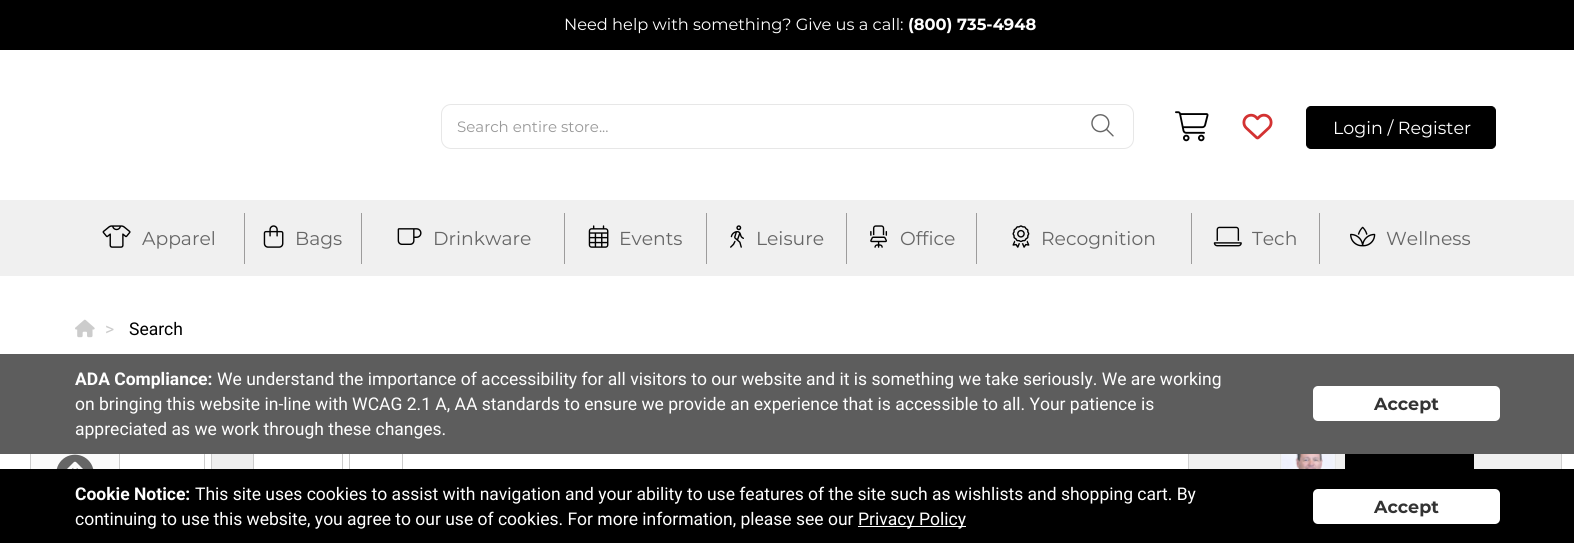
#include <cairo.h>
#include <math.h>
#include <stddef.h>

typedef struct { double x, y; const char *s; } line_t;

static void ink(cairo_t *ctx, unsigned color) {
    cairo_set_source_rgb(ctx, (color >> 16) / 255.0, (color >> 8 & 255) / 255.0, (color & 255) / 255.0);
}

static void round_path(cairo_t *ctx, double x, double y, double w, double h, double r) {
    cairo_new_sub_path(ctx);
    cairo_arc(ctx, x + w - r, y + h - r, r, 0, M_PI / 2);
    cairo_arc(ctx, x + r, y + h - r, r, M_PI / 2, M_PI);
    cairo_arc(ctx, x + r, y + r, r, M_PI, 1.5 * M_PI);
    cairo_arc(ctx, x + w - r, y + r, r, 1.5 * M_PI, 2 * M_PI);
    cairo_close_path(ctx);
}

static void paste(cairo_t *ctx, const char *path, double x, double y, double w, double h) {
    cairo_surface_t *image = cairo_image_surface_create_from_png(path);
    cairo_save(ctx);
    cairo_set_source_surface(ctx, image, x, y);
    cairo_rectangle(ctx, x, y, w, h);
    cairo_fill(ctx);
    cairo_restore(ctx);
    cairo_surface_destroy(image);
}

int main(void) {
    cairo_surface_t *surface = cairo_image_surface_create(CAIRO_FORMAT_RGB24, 1574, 543);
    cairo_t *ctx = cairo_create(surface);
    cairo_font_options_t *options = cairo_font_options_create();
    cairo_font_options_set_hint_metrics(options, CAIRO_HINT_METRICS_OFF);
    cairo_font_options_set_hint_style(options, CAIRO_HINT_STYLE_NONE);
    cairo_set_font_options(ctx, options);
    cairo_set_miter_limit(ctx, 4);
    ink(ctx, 0xFFFFFF);
    cairo_paint(ctx);
    ink(ctx, 0x000000);
    cairo_rectangle(ctx, 0, 0, 1574, 50);
    cairo_fill(ctx);
    cairo_select_font_face(ctx, "Montserrat", CAIRO_FONT_SLANT_NORMAL, CAIRO_FONT_WEIGHT_NORMAL);
    cairo_set_font_size(ctx, 16.25);
    ink(ctx, 0xFFFFFF);
    cairo_move_to(ctx, 564, 30);
    cairo_show_text(ctx, "Need help with something? Give us a call:");
    cairo_select_font_face(ctx, "Montserrat", CAIRO_FONT_SLANT_NORMAL, CAIRO_FONT_WEIGHT_BOLD);
    cairo_move_to(ctx, 908, 30);
    cairo_show_text(ctx, "(800) 735-4948");
    round_path(ctx, 441.5, 104.5, 692, 44, 9.5);
    ink(ctx, 0xE7E7E7);
    cairo_set_line_width(ctx, 1);
    cairo_stroke(ctx);
    cairo_select_font_face(ctx, "Montserrat", CAIRO_FONT_SLANT_NORMAL, CAIRO_FONT_WEIGHT_NORMAL);
    cairo_set_font_size(ctx, 15);
    ink(ctx, 0x999999);
    cairo_move_to(ctx, 457, 132);
    cairo_show_text(ctx, "Search entire store...");
    paste(ctx, "media/1.png", 1091, 114, 23, 23);
    paste(ctx, "media/2.png", 1175, 111, 34, 31);
    paste(ctx, "media/3.png", 1242, 113, 31, 27);
    ink(ctx, 0x000000);
    round_path(ctx, 1306.5, 106.5, 189, 42, 4.5);
    cairo_fill_preserve(ctx);
    cairo_stroke(ctx);
    cairo_set_font_size(ctx, 17.5);
    ink(ctx, 0xFFFFFF);
    cairo_move_to(ctx, 1333, 134);
    cairo_show_text(ctx, "Login / Register");
    ink(ctx, 0xD1D1D1);
    cairo_set_fill_rule(ctx, CAIRO_FILL_RULE_EVEN_ODD);
    cairo_new_path(ctx);
    cairo_move_to(ctx, 1198, 428);
    cairo_line_to(ctx, 1552, 428);
    cairo_curve_to(ctx, 1558, 428, 1562, 432, 1562, 438);
    cairo_line_to(ctx, 1562, 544);
    cairo_line_to(ctx, 1188, 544);
    cairo_line_to(ctx, 1188, 438);
    cairo_curve_to(ctx, 1188, 432, 1192, 428, 1198, 428);
    cairo_close_path(ctx);
    cairo_move_to(ctx, 1198, 429);
    cairo_line_to(ctx, 1552, 429);
    cairo_curve_to(ctx, 1557, 429, 1561, 433, 1561, 438);
    cairo_line_to(ctx, 1561, 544);
    cairo_line_to(ctx, 1189, 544);
    cairo_line_to(ctx, 1189, 438);
    cairo_curve_to(ctx, 1189, 433, 1193, 429, 1198, 429);
    cairo_close_path(ctx);
    cairo_fill(ctx);
    ink(ctx, 0xF0F0F0);
    cairo_rectangle(ctx, 1189, 454, 372, 15);
    cairo_fill(ctx);
    cairo_rectangle(ctx, 1280.5, 439.5, 55, 55);
    ink(ctx, 0xE7E7E7);
    cairo_stroke(ctx);
    paste(ctx, "media/4.png", 1281, 454, 54, 15);
    ink(ctx, 0x000000);
    cairo_rectangle(ctx, 1346, 454, 127, 15);
    cairo_fill(ctx);
    cairo_rectangle(ctx, 1345.5, 449.5, 128, 36);
    cairo_stroke(ctx);
    ink(ctx, 0xF0F0F0);
    cairo_rectangle(ctx, 0, 200, 1574, 76);
    cairo_fill(ctx);
    ink(ctx, 0x9D9C9C);
    cairo_rectangle(ctx, 244, 213, 1, 51);
    cairo_fill(ctx);
    paste(ctx, "media/5.png", 102, 225, 29, 23);
    cairo_set_font_size(ctx, 18.75);
    ink(ctx, 0x666666);
    cairo_move_to(ctx, 142, 245);
    cairo_show_text(ctx, "Apparel");
    ink(ctx, 0x9D9C9C);
    cairo_rectangle(ctx, 361, 213, 1, 51);
    cairo_fill(ctx);
    paste(ctx, "media/6.png", 263, 225, 21, 23);
    ink(ctx, 0x666666);
    cairo_move_to(ctx, 295, 245);
    cairo_show_text(ctx, "Bags");
    ink(ctx, 0x9D9C9C);
    cairo_rectangle(ctx, 564, 213, 1, 51);
    cairo_fill(ctx);
    paste(ctx, "media/7.png", 397, 228, 25, 17);
    ink(ctx, 0x666666);
    cairo_move_to(ctx, 433, 245);
    cairo_show_text(ctx, "Drinkware");
    ink(ctx, 0x9D9C9C);
    cairo_rectangle(ctx, 706, 213, 1, 51);
    cairo_fill(ctx);
    paste(ctx, "media/8.png", 588, 225, 21, 23);
    ink(ctx, 0x666666);
    cairo_move_to(ctx, 619, 245);
    cairo_show_text(ctx, "Events");
    ink(ctx, 0x9D9C9C);
    cairo_rectangle(ctx, 846, 213, 1, 51);
    cairo_fill(ctx);
    paste(ctx, "media/9.png", 730, 225, 14, 23);
    ink(ctx, 0x666666);
    cairo_move_to(ctx, 756, 245);
    cairo_show_text(ctx, "Leisure");
    ink(ctx, 0x9D9C9C);
    cairo_rectangle(ctx, 976, 213, 1, 51);
    cairo_fill(ctx);
    paste(ctx, "media/10.png", 870, 225, 18, 23);
    ink(ctx, 0x666666);
    cairo_move_to(ctx, 900, 245);
    cairo_show_text(ctx, "Office");
    ink(ctx, 0x9D9C9C);
    cairo_rectangle(ctx, 1191, 213, 1, 51);
    cairo_fill(ctx);
    paste(ctx, "media/11.png", 1012, 225, 18, 23);
    ink(ctx, 0x666666);
    cairo_move_to(ctx, 1041, 245);
    cairo_show_text(ctx, "Recognition");
    ink(ctx, 0x9D9C9C);
    cairo_rectangle(ctx, 1319, 213, 1, 51);
    cairo_fill(ctx);
    paste(ctx, "media/12.png", 1213, 226, 29, 21);
    ink(ctx, 0x666666);
    cairo_move_to(ctx, 1252, 245);
    cairo_show_text(ctx, "Tech");
    paste(ctx, "media/13.png", 1350, 226, 26, 21);
    cairo_move_to(ctx, 1386, 245);
    cairo_show_text(ctx, "Wellness");
    paste(ctx, "media/14.png", 75, 319, 20, 19);
    cairo_select_font_face(ctx, "Roboto", CAIRO_FONT_SLANT_NORMAL, CAIRO_FONT_WEIGHT_NORMAL);
    cairo_set_font_size(ctx, 17.5);
    ink(ctx, 0xCCCCCC);
    cairo_move_to(ctx, 105, 335);
    cairo_show_text(ctx, ">");
    ink(ctx, 0x000000);
    cairo_move_to(ctx, 129, 335);
    cairo_show_text(ctx, "Search");
    cairo_rectangle(ctx, 116.5, 451.5, 88, 42);
    ink(ctx, 0xCCCCCC);
    cairo_stroke(ctx);
    ink(ctx, 0xFAFAFA);
    cairo_rectangle(ctx, 31, 454, 88, 15);
    cairo_fill(ctx);
    cairo_rectangle(ctx, 30.5, 441.5, 89, 68);
    ink(ctx, 0xCCCCCC);
    cairo_stroke(ctx);
    paste(ctx, "media/15.png", 56, 454, 38, 15);
    ink(ctx, 0xEEEEEE);
    cairo_rectangle(ctx, 212, 454, 41, 15);
    cairo_fill(ctx);
    ink(ctx, 0xCCCCCC);
    cairo_rectangle(ctx, 211, 451, 1, 18);
    cairo_fill(ctx);
    cairo_rectangle(ctx, 253.5, 451.5, 89, 42);
    cairo_stroke(ctx);
    cairo_rectangle(ctx, 349.5, 451.5, 53, 42);
    cairo_stroke(ctx);
    ink(ctx, 0x5D5D5D);
    cairo_rectangle(ctx, 0, 354, 1574, 100);
    cairo_fill(ctx);
    cairo_select_font_face(ctx, "Roboto", CAIRO_FONT_SLANT_NORMAL, CAIRO_FONT_WEIGHT_BOLD);
    ink(ctx, 0xFFFFFF);
    cairo_move_to(ctx, 75, 385);
    cairo_show_text(ctx, "ADA Compliance:");
    cairo_select_font_face(ctx, "Roboto", CAIRO_FONT_SLANT_NORMAL, CAIRO_FONT_WEIGHT_NORMAL);
    {
        static const line_t items[] = {
            {217, 385, "We understand the importance of accessibility for all visitors to our website and it is something we take seriously. We are working"},
            {75, 410, "on bringing this website in-line with WCAG 2.1 A, AA standards to ensure we provide an experience that is accessible to all. Your patience is"},
            {75, 435, "appreciated as we work through these changes."},
        };
        for (size_t i = 0; i < sizeof items / sizeof *items; i++) {
            cairo_move_to(ctx, items[i].x, items[i].y);
            cairo_show_text(ctx, items[i].s);
        }
    }
    round_path(ctx, 1313, 386, 187, 35, 5);
    cairo_fill(ctx);
    cairo_select_font_face(ctx, "Montserrat", CAIRO_FONT_SLANT_NORMAL, CAIRO_FONT_WEIGHT_BOLD);
    ink(ctx, 0x333333);
    cairo_move_to(ctx, 1374, 410);
    cairo_show_text(ctx, "Accept");
    ink(ctx, 0x000000);
    cairo_rectangle(ctx, 0, 469, 1574, 74);
    cairo_fill(ctx);
    cairo_select_font_face(ctx, "Roboto", CAIRO_FONT_SLANT_NORMAL, CAIRO_FONT_WEIGHT_BOLD);
    ink(ctx, 0xFFFFFF);
    cairo_move_to(ctx, 75, 500);
    cairo_show_text(ctx, "Cookie Notice:");
    cairo_select_font_face(ctx, "Roboto", CAIRO_FONT_SLANT_NORMAL, CAIRO_FONT_WEIGHT_NORMAL);
    cairo_move_to(ctx, 195, 500);
    cairo_show_text(ctx, "This site uses cookies to assist with navigation and your ability to use features of the site such as wishlists and shopping cart. By");
    cairo_move_to(ctx, 75, 525);
    cairo_show_text(ctx, "continuing to use this website, you agree to our use of cookies. For more information, please see our");
    cairo_rectangle(ctx, 858, 526, 108, 1);
    cairo_fill(ctx);
    cairo_move_to(ctx, 858, 525);
    cairo_show_text(ctx, "Privacy Policy");
    round_path(ctx, 1313, 489, 187, 35, 5);
    cairo_fill(ctx);
    cairo_select_font_face(ctx, "Montserrat", CAIRO_FONT_SLANT_NORMAL, CAIRO_FONT_WEIGHT_BOLD);
    ink(ctx, 0x333333);
    cairo_move_to(ctx, 1374, 513);
    cairo_show_text(ctx, "Accept");
    cairo_surface_write_to_png(surface, "image.png");
    cairo_font_options_destroy(options);
    cairo_destroy(ctx);
    cairo_surface_destroy(surface);
    return 0;
}
